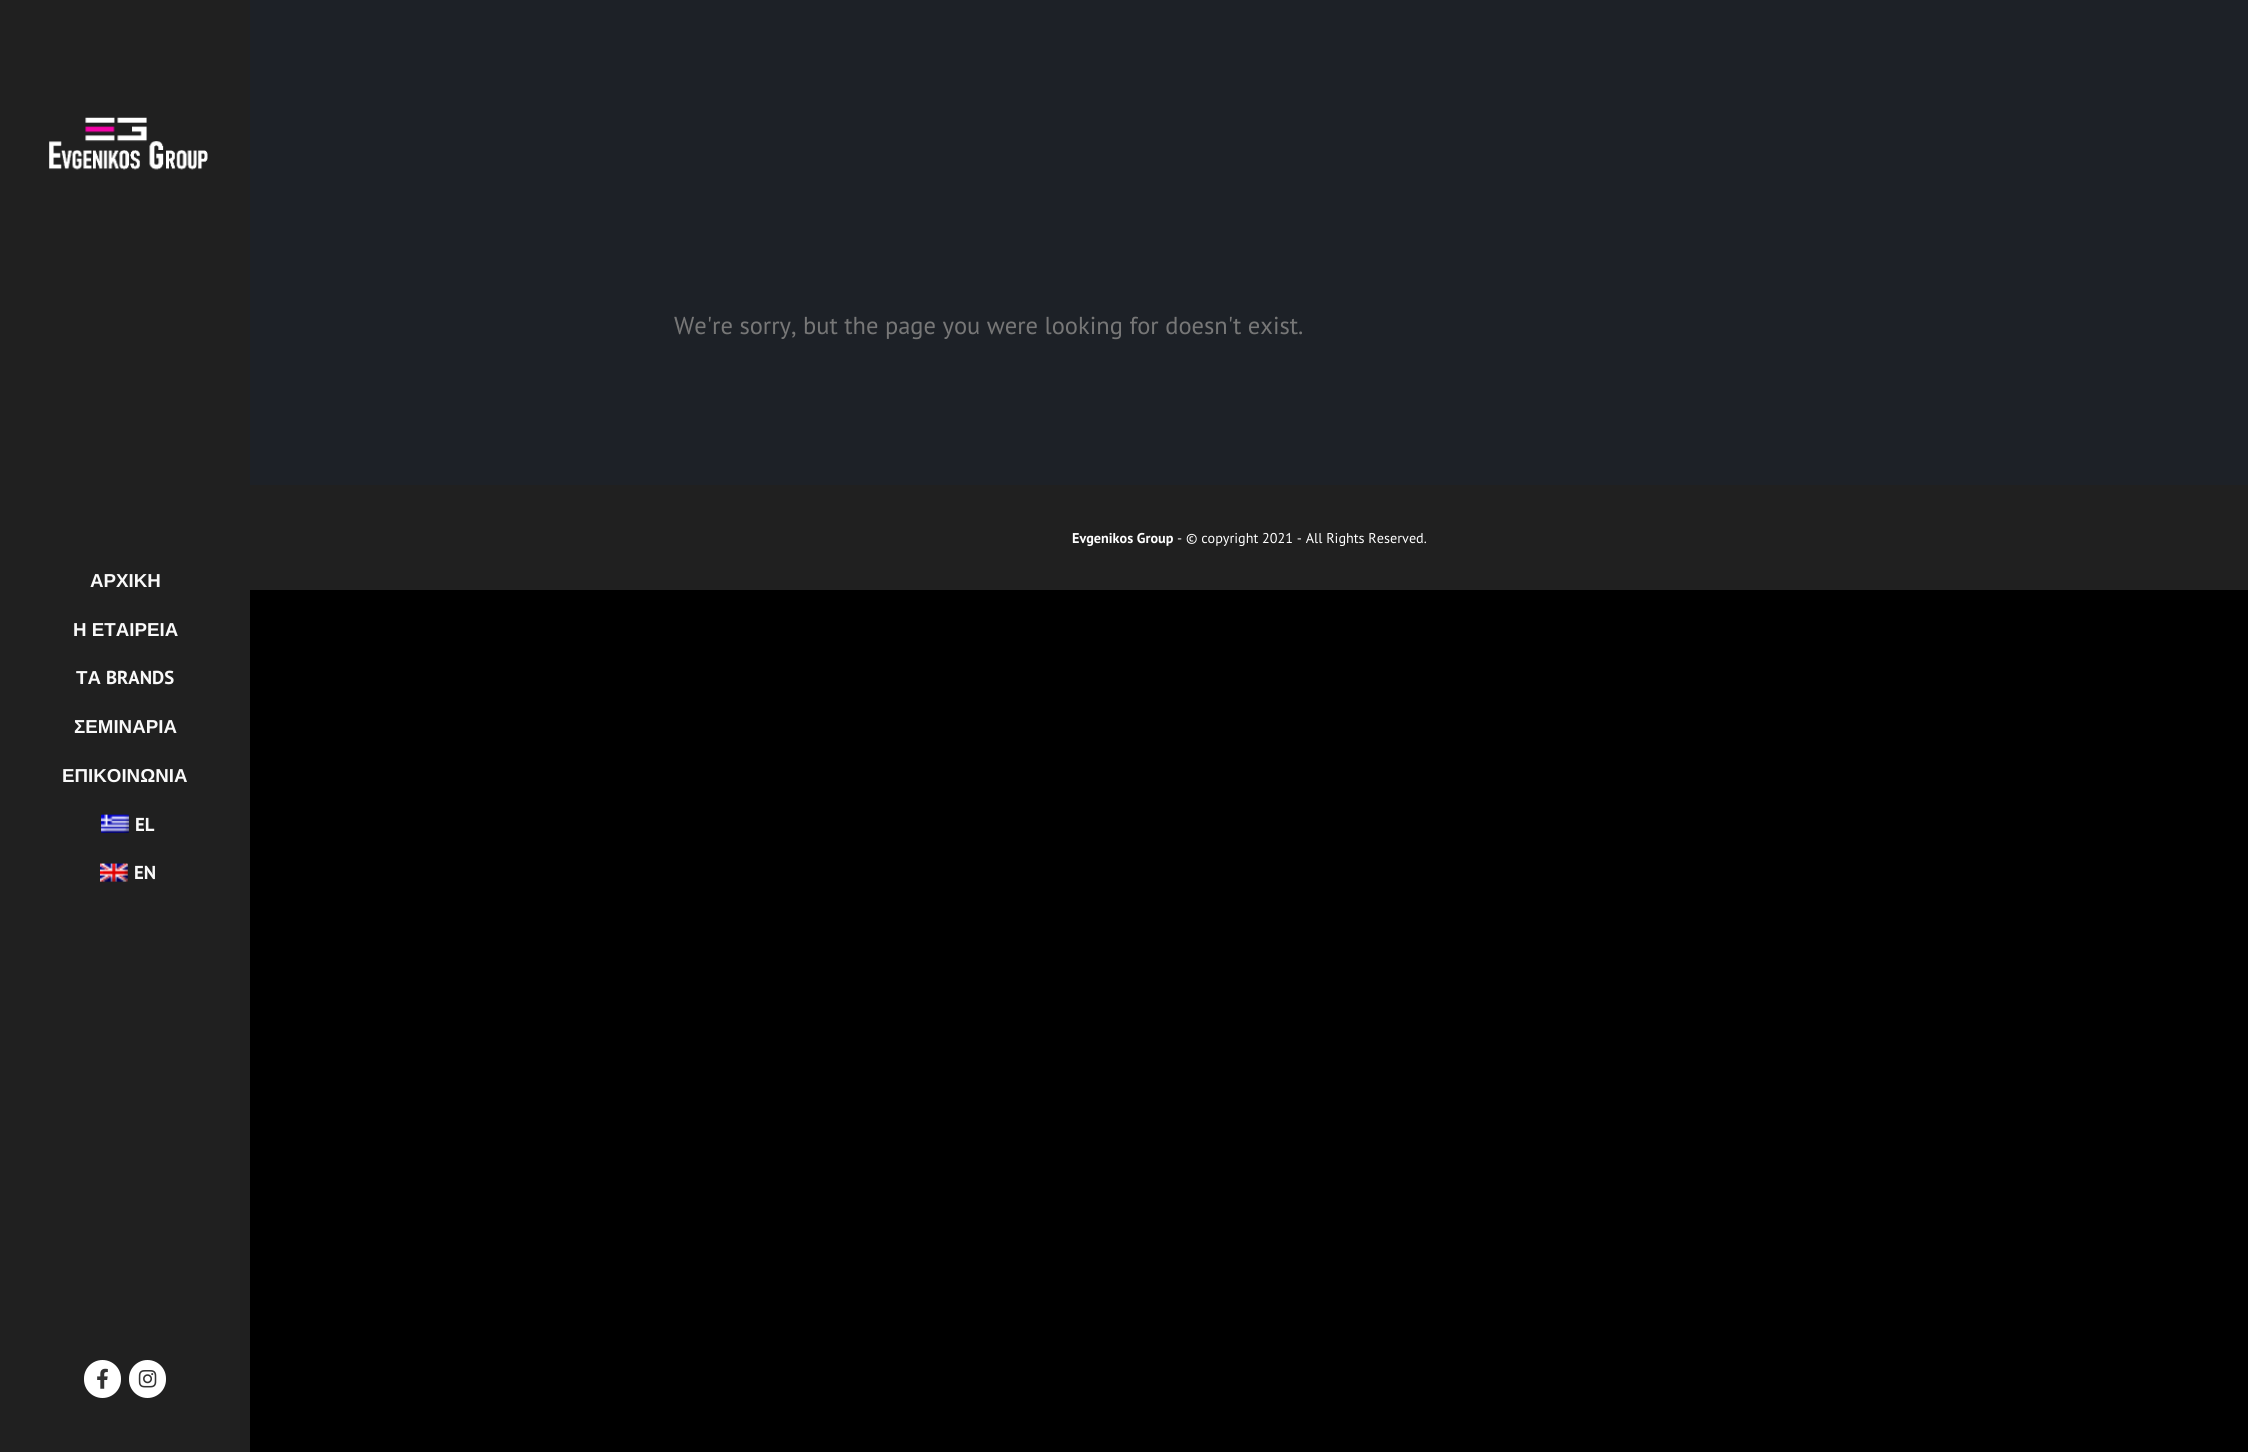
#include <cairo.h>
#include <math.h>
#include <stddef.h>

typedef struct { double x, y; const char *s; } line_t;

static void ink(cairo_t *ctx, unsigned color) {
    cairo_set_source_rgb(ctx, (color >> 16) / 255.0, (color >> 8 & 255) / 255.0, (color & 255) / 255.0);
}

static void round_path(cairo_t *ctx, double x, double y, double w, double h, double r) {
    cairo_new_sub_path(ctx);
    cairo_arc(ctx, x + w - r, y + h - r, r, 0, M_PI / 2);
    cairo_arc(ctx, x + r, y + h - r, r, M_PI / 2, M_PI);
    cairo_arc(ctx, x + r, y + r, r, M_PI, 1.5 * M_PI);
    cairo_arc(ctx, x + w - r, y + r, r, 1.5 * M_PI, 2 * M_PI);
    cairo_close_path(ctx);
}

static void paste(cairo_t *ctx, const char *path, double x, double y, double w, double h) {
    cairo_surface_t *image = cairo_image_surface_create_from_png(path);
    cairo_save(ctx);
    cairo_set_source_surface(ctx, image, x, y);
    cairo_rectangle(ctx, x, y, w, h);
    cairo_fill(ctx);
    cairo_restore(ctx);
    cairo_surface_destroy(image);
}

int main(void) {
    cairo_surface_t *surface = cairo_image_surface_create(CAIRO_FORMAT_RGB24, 2248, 1452);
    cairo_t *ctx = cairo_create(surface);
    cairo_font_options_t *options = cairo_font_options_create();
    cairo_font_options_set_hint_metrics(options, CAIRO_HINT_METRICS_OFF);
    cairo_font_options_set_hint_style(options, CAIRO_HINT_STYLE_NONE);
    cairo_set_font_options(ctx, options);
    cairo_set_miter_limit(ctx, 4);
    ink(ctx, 0x000000);
    cairo_paint(ctx);
    ink(ctx, 0x1D2127);
    cairo_rectangle(ctx, 250, 0, 1998, 485);
    cairo_fill(ctx);
    cairo_select_font_face(ctx, "PT Sans", CAIRO_FONT_SLANT_NORMAL, CAIRO_FONT_WEIGHT_NORMAL);
    cairo_set_font_size(ctx, 24.5);
    ink(ctx, 0x777777);
    cairo_move_to(ctx, 674, 334);
    cairo_show_text(ctx, "We're sorry, but the page you were looking for doesn't exist.");
    ink(ctx, 0x202020);
    cairo_rectangle(ctx, 250, 485, 1998, 105);
    cairo_fill(ctx);
    cairo_select_font_face(ctx, "PT Sans", CAIRO_FONT_SLANT_NORMAL, CAIRO_FONT_WEIGHT_BOLD);
    cairo_set_font_size(ctx, 14.2);
    ink(ctx, 0xFFFFFF);
    cairo_move_to(ctx, 1072, 543);
    cairo_show_text(ctx, "Evgenikos Group");
    cairo_select_font_face(ctx, "PT Sans", CAIRO_FONT_SLANT_NORMAL, CAIRO_FONT_WEIGHT_NORMAL);
    cairo_move_to(ctx, 1177, 543);
    cairo_show_text(ctx, "- © copyright 2021 - All Rights Reserved.");
    ink(ctx, 0x202020);
    cairo_rectangle(ctx, 0, 0, 250, 1452);
    cairo_fill(ctx);
    paste(ctx, "media/1.png", 49, 117, 159, 53);
    cairo_select_font_face(ctx, "Liberation Sans", CAIRO_FONT_SLANT_NORMAL, CAIRO_FONT_WEIGHT_BOLD);
    cairo_set_font_size(ctx, 18.75);
    ink(ctx, 0xF9F9F9);
    {
        static const line_t items[] = {
            {90, 587, "ΑΡΧΙΚΗ"},
            {73, 636, "Η ΕΤΑΙΡΕΙΑ"},
            {76, 684, "ΤΑ"},
        };
        for (size_t i = 0; i < sizeof items / sizeof *items; i++) {
            cairo_move_to(ctx, items[i].x, items[i].y);
            cairo_show_text(ctx, items[i].s);
        }
    }
    cairo_select_font_face(ctx, "PT Sans", CAIRO_FONT_SLANT_NORMAL, CAIRO_FONT_WEIGHT_BOLD);
    cairo_move_to(ctx, 106, 684);
    cairo_show_text(ctx, "BRANDS");
    cairo_select_font_face(ctx, "Liberation Sans", CAIRO_FONT_SLANT_NORMAL, CAIRO_FONT_WEIGHT_BOLD);
    cairo_move_to(ctx, 74, 733);
    cairo_show_text(ctx, "ΣΕΜΙΝΑΡΙΑ");
    cairo_move_to(ctx, 62, 782);
    cairo_show_text(ctx, "ΕΠΙΚΟΙΝΩΝΙΑ");
    paste(ctx, "media/2.png", 101, 814, 28, 19);
    paste(ctx, "media/3.png", 101, 814, 28, 19);
    cairo_select_font_face(ctx, "PT Sans", CAIRO_FONT_SLANT_NORMAL, CAIRO_FONT_WEIGHT_BOLD);
    cairo_move_to(ctx, 135, 831);
    cairo_show_text(ctx, "EL");
    paste(ctx, "media/4.png", 100, 863, 28, 19);
    paste(ctx, "media/5.png", 100, 863, 28, 19);
    cairo_move_to(ctx, 134, 879);
    cairo_show_text(ctx, "EN");
    ink(ctx, 0xFFFFFF);
    round_path(ctx, 84, 1360, 37, 38, 18.5);
    cairo_fill(ctx);
    paste(ctx, "media/6.png", 97, 1368, 11, 21);
    round_path(ctx, 129, 1360, 37, 38, 18.5);
    cairo_fill(ctx);
    paste(ctx, "media/7.png", 138, 1370, 19, 18);
    cairo_surface_write_to_png(surface, "image.png");
    cairo_font_options_destroy(options);
    cairo_destroy(ctx);
    cairo_surface_destroy(surface);
    return 0;
}
